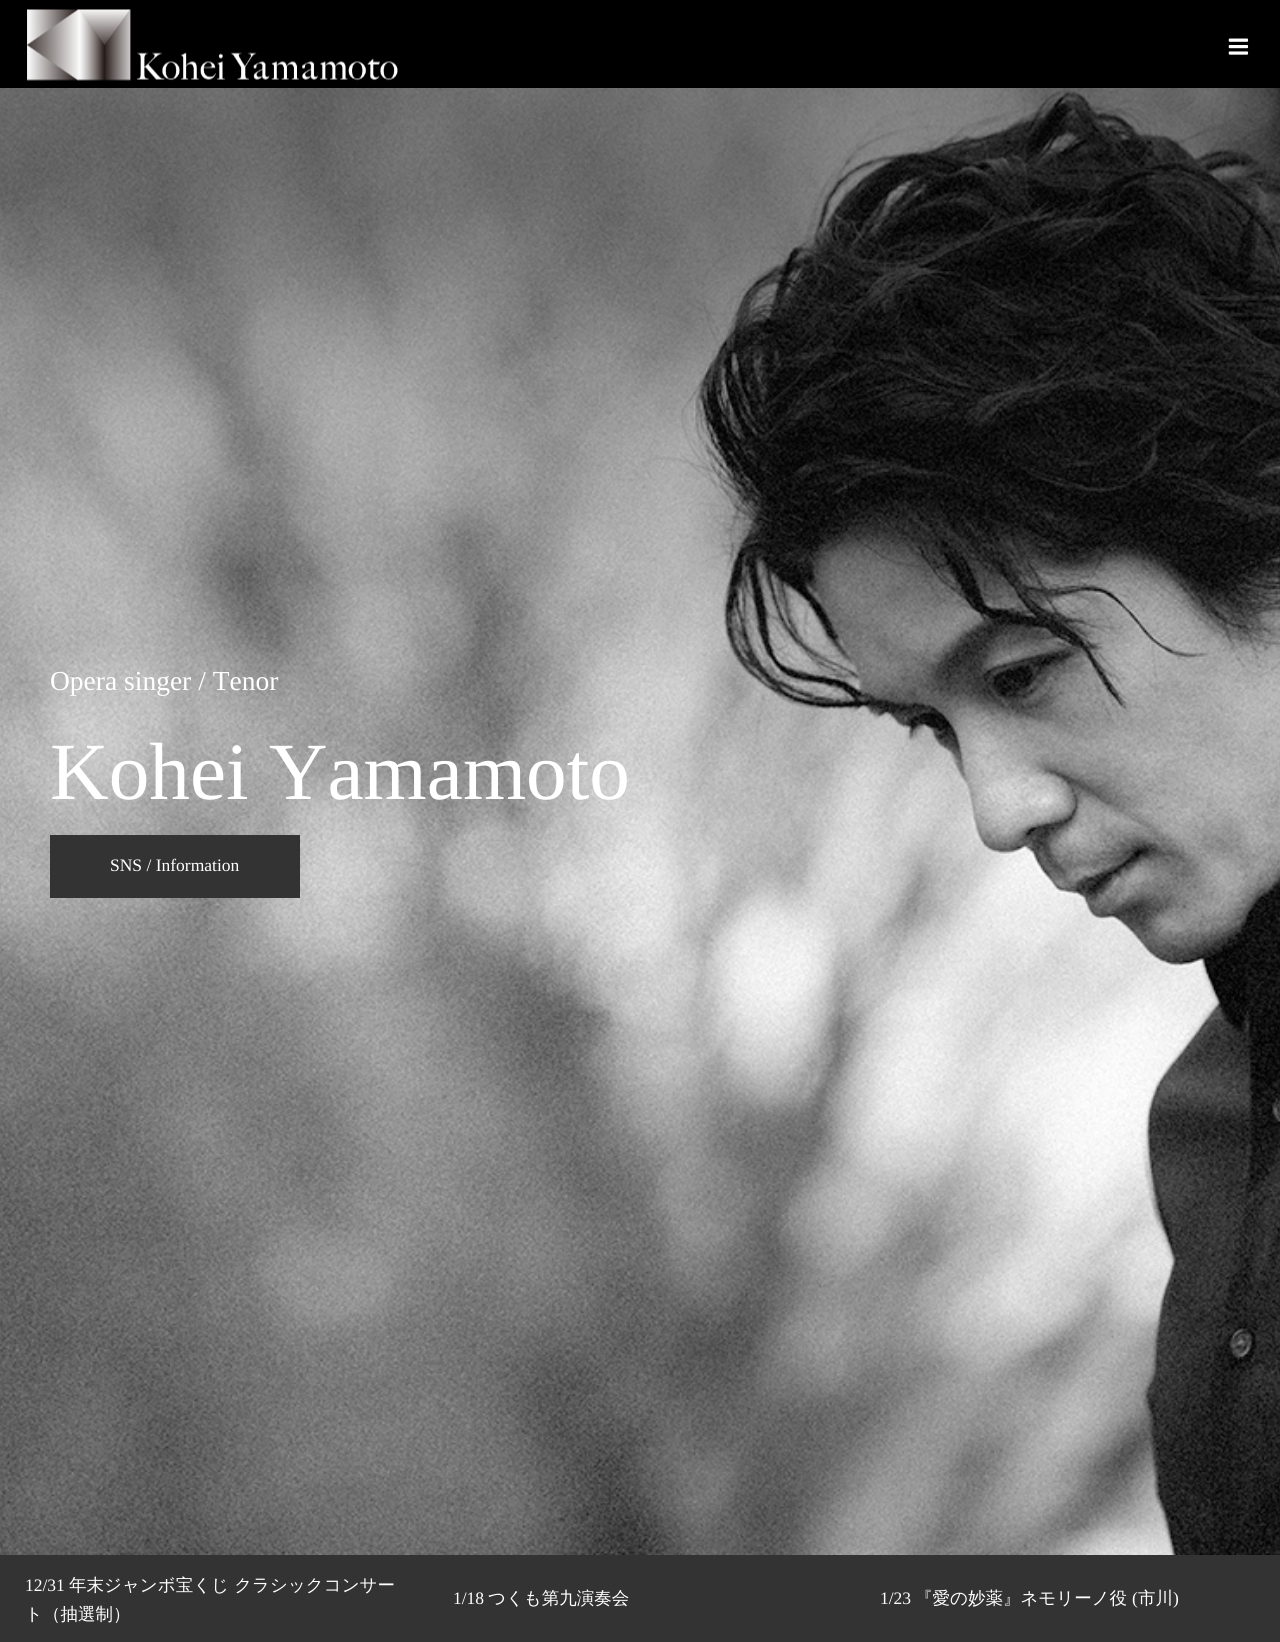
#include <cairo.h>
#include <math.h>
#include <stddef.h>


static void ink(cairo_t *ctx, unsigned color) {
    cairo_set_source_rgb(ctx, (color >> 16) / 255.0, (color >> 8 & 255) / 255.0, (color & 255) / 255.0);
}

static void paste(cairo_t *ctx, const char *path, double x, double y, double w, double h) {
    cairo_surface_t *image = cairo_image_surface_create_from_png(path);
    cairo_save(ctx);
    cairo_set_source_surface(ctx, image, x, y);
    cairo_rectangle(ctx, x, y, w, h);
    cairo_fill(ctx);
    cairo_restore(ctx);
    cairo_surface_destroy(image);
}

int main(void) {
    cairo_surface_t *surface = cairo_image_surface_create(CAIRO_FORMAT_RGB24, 1280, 1642);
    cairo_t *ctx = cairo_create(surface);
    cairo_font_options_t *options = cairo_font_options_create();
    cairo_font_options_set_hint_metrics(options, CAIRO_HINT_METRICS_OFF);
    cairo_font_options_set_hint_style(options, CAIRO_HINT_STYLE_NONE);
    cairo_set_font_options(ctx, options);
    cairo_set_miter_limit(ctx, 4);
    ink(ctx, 0xFFFFFF);
    cairo_paint(ctx);
    ink(ctx, 0x000000);
    cairo_rectangle(ctx, 0, 0, 1280, 88);
    cairo_fill(ctx);
    paste(ctx, "media/1.png", 27, 9, 371, 72);
    paste(ctx, "media/2.png", 1228, 38, 21, 17);
    paste(ctx, "media/3.png", 0, 88, 1280, 1467);
    cairo_select_font_face(ctx, "Liberation Serif", CAIRO_FONT_SLANT_NORMAL, CAIRO_FONT_WEIGHT_NORMAL);
    cairo_set_font_size(ctx, 27.5);
    ink(ctx, 0xFFFFFF);
    cairo_move_to(ctx, 50, 690);
    cairo_show_text(ctx, "Opera singer / Tenor");
    cairo_set_font_size(ctx, 81.25);
    cairo_move_to(ctx, 50, 799);
    cairo_show_text(ctx, "Kohei Yamamoto");
    ink(ctx, 0x333333);
    cairo_rectangle(ctx, 50, 835, 250, 63);
    cairo_fill(ctx);
    cairo_set_font_size(ctx, 17.5);
    ink(ctx, 0xFFFFFF);
    cairo_move_to(ctx, 110, 871);
    cairo_show_text(ctx, "SNS / Information");
    ink(ctx, 0x333333);
    cairo_rectangle(ctx, 0, 1555, 1280, 87);
    cairo_fill(ctx);
    ink(ctx, 0xFFFFFF);
    cairo_move_to(ctx, 25, 1591);
    cairo_show_text(ctx, "12/31");
    cairo_select_font_face(ctx, "WenQuanYi Zen Hei Medium", CAIRO_FONT_SLANT_NORMAL, CAIRO_FONT_WEIGHT_NORMAL);
    cairo_move_to(ctx, 69, 1591);
    cairo_show_text(ctx, "年末ジャンボ宝くじ クラシックコンサー");
    cairo_move_to(ctx, 25, 1620);
    cairo_show_text(ctx, "ト（抽選制）");
    cairo_select_font_face(ctx, "Liberation Serif", CAIRO_FONT_SLANT_NORMAL, CAIRO_FONT_WEIGHT_NORMAL);
    cairo_move_to(ctx, 453, 1604);
    cairo_show_text(ctx, "1/18");
    cairo_select_font_face(ctx, "WenQuanYi Zen Hei Medium", CAIRO_FONT_SLANT_NORMAL, CAIRO_FONT_WEIGHT_NORMAL);
    cairo_move_to(ctx, 488, 1604);
    cairo_show_text(ctx, "つくも第九演奏会");
    cairo_select_font_face(ctx, "Liberation Serif", CAIRO_FONT_SLANT_NORMAL, CAIRO_FONT_WEIGHT_NORMAL);
    cairo_move_to(ctx, 880, 1604);
    cairo_show_text(ctx, "1/23");
    cairo_select_font_face(ctx, "WenQuanYi Zen Hei Medium", CAIRO_FONT_SLANT_NORMAL, CAIRO_FONT_WEIGHT_NORMAL);
    cairo_move_to(ctx, 915, 1604);
    cairo_show_text(ctx, "『愛の妙薬』ネモリーノ役");
    cairo_select_font_face(ctx, "Liberation Serif", CAIRO_FONT_SLANT_NORMAL, CAIRO_FONT_WEIGHT_NORMAL);
    cairo_move_to(ctx, 1132, 1604);
    cairo_show_text(ctx, "(");
    cairo_select_font_face(ctx, "WenQuanYi Zen Hei Medium", CAIRO_FONT_SLANT_NORMAL, CAIRO_FONT_WEIGHT_NORMAL);
    cairo_move_to(ctx, 1138, 1604);
    cairo_show_text(ctx, "市川");
    cairo_select_font_face(ctx, "Liberation Serif", CAIRO_FONT_SLANT_NORMAL, CAIRO_FONT_WEIGHT_NORMAL);
    cairo_move_to(ctx, 1173, 1604);
    cairo_show_text(ctx, ")");
    cairo_surface_write_to_png(surface, "image.png");
    cairo_font_options_destroy(options);
    cairo_destroy(ctx);
    cairo_surface_destroy(surface);
    return 0;
}
